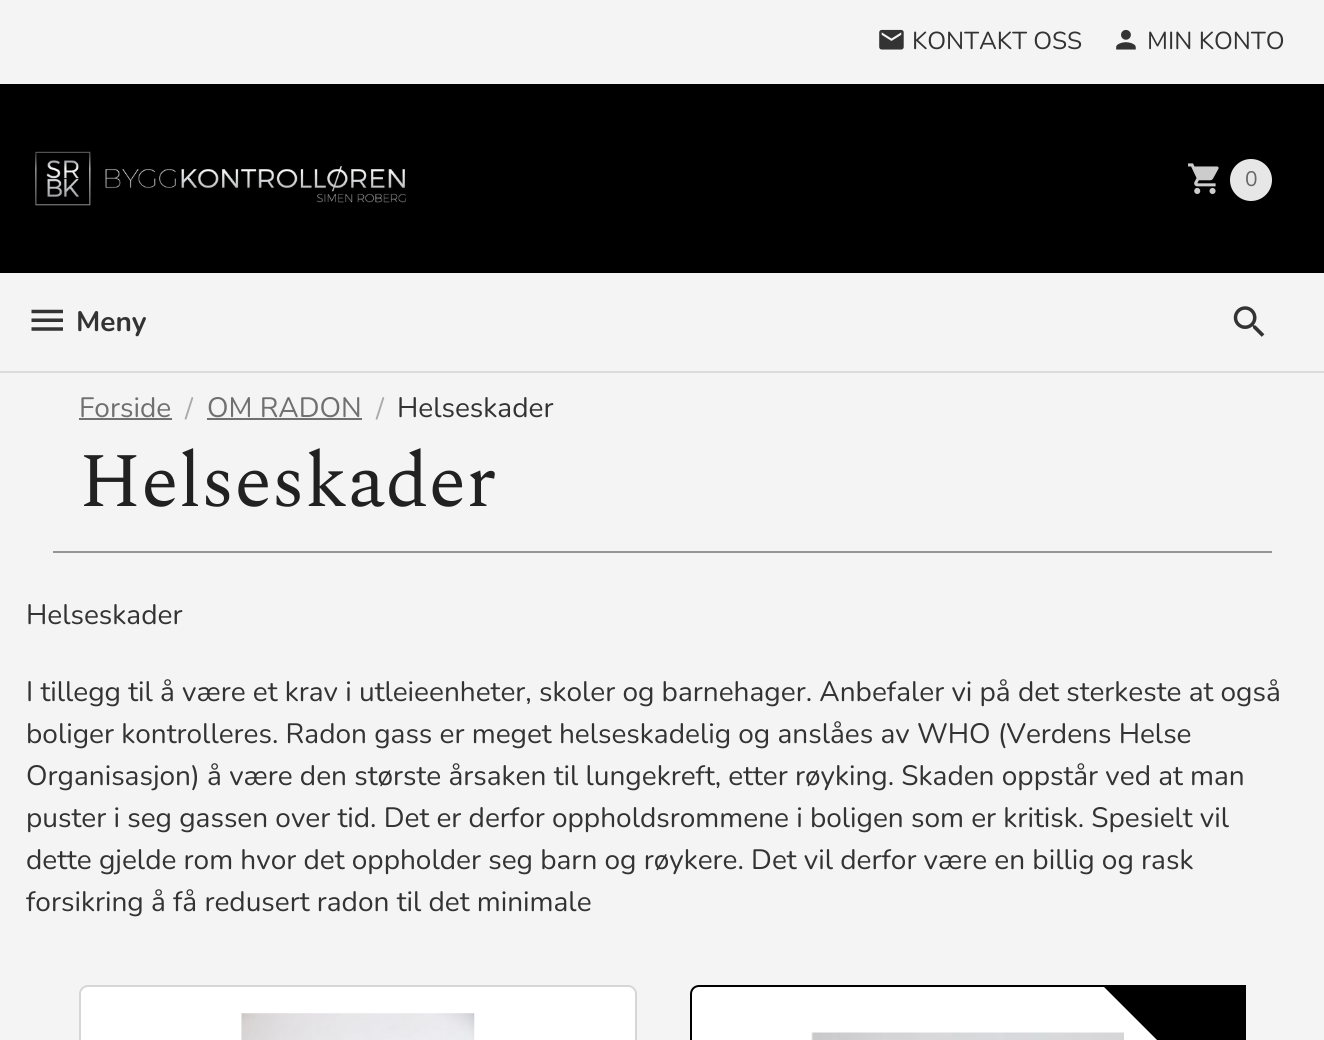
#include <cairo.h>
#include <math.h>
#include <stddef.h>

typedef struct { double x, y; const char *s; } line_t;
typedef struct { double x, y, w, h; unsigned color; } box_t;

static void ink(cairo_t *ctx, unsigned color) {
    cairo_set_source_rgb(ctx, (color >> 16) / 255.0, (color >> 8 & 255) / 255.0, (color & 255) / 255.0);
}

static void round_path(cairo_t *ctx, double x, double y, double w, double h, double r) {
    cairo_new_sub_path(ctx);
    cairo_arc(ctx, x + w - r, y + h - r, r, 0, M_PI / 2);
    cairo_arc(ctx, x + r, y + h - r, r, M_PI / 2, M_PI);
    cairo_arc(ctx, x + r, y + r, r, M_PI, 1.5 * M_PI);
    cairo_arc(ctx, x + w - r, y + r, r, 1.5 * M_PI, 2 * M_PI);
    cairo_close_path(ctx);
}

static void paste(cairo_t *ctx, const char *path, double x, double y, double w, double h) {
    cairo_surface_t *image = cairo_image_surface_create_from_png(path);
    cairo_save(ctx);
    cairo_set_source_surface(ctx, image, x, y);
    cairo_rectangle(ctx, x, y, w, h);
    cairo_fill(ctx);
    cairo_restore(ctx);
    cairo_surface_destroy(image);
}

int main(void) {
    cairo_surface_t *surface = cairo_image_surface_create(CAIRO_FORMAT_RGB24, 1324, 1040);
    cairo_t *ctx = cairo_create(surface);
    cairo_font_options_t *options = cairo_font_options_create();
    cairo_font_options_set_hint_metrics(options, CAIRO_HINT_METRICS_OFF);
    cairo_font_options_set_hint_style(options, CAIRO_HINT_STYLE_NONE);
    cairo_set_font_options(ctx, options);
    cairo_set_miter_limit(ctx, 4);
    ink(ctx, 0x000000);
    cairo_paint(ctx);
    ink(ctx, 0xF4F4F4);
    cairo_rectangle(ctx, 0, 0, 1324, 84);
    cairo_fill(ctx);
    paste(ctx, "media/1.png", 879, 29, 25, 21);
    cairo_select_font_face(ctx, "Nunito", CAIRO_FONT_SLANT_NORMAL, CAIRO_FONT_WEIGHT_NORMAL);
    cairo_set_font_size(ctx, 24.5);
    ink(ctx, 0x333333);
    cairo_move_to(ctx, 912, 49);
    cairo_show_text(ctx, "KONTAKT OSS");
    paste(ctx, "media/2.png", 1116, 29, 20, 21);
    cairo_move_to(ctx, 1147, 49);
    cairo_show_text(ctx, "MIN KONTO");
    paste(ctx, "media/3.png", 35, 151, 371, 55);
    paste(ctx, "media/4.png", 1188, 163, 31, 31);
    ink(ctx, 0xE7E7E7);
    cairo_arc(ctx, 1251, 180, 21, 0, 2 * M_PI);
    cairo_fill(ctx);
    cairo_set_font_size(ctx, 21);
    ink(ctx, 0x666666);
    cairo_move_to(ctx, 1245, 186);
    cairo_show_text(ctx, "0");
    ink(ctx, 0xF4F4F4);
    cairo_rectangle(ctx, 0, 273, 1324, 98);
    cairo_fill(ctx);
    paste(ctx, "media/5.png", 31, 309, 32, 22);
    cairo_select_font_face(ctx, "Nunito", CAIRO_FONT_SLANT_NORMAL, CAIRO_FONT_WEIGHT_BOLD);
    cairo_set_font_size(ctx, 28);
    ink(ctx, 0x333333);
    cairo_move_to(ctx, 76, 331);
    cairo_show_text(ctx, "Meny");
    paste(ctx, "media/6.png", 1233, 306, 32, 31);
    {
        static const box_t items[] = {
            {0, 373, 1324, 667, 0xF4F4F4},
            {0, 371, 1324, 2, 0xDBDBDB},
            {53, 551, 1219, 2, 0x949494},
        };
        for (size_t i = 0; i < sizeof items / sizeof *items; i++) {
            ink(ctx, items[i].color);
            cairo_rectangle(ctx, items[i].x, items[i].y, items[i].w, items[i].h);
            cairo_fill(ctx);
        }
    }
    cairo_select_font_face(ctx, "Nunito", CAIRO_FONT_SLANT_NORMAL, CAIRO_FONT_WEIGHT_NORMAL);
    ink(ctx, 0x707070);
    cairo_move_to(ctx, 79, 417);
    cairo_show_text(ctx, "Forside");
    cairo_rectangle(ctx, 79, 418, 93, 2);
    cairo_fill(ctx);
    ink(ctx, 0xAAAAAA);
    cairo_move_to(ctx, 185, 418);
    cairo_show_text(ctx, "/");
    ink(ctx, 0x707070);
    cairo_move_to(ctx, 207, 417);
    cairo_show_text(ctx, "OM RADON");
    cairo_rectangle(ctx, 207, 418, 155, 2);
    cairo_fill(ctx);
    ink(ctx, 0xAAAAAA);
    cairo_move_to(ctx, 376, 418);
    cairo_show_text(ctx, "/");
    ink(ctx, 0x333333);
    cairo_move_to(ctx, 397, 417);
    cairo_show_text(ctx, "Helseskader");
    cairo_select_font_face(ctx, "Spectral", CAIRO_FONT_SLANT_NORMAL, CAIRO_FONT_WEIGHT_NORMAL);
    cairo_set_font_size(ctx, 77);
    ink(ctx, 0x212121);
    cairo_move_to(ctx, 79, 506);
    cairo_show_text(ctx, "Helseskader");
    cairo_select_font_face(ctx, "Nunito", CAIRO_FONT_SLANT_NORMAL, CAIRO_FONT_WEIGHT_NORMAL);
    cairo_set_font_size(ctx, 28);
    ink(ctx, 0x333333);
    {
        static const line_t items[] = {
            {26, 624, "Helseskader"},
            {26, 701, "I tillegg til å være et krav i utleieenheter, skoler og barnehager. Anbefaler vi på det sterkeste at også"},
            {26, 743, "boliger kontrolleres. Radon gass er meget helseskadelig og anslåes av WHO (Verdens Helse"},
            {26, 785, "Organisasjon) å være den største årsaken til lungekreft, etter røyking. Skaden oppstår ved at man"},
            {26, 827, "puster i seg gassen over tid. Det er derfor oppholdsrommene i boligen som er kritisk. Spesielt vil"},
            {26, 869, "dette gjelde rom hvor det oppholder seg barn og røykere. Det vil derfor være en billig og rask"},
            {26, 911, "forsikring å få redusert radon til det minimale"},
        };
        for (size_t i = 0; i < sizeof items / sizeof *items; i++) {
            cairo_move_to(ctx, items[i].x, items[i].y);
            cairo_show_text(ctx, items[i].s);
        }
    }
    ink(ctx, 0xFFFFFF);
    round_path(ctx, 79, 985, 558, 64, 9);
    cairo_fill(ctx);
    round_path(ctx, 80, 986, 556, 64, 8);
    cairo_set_source_rgba(ctx, 0.2, 0.2, 0.2, 0.2);
    cairo_stroke(ctx);
    paste(ctx, "media/7.png", 241, 1013, 234, 27);
    ink(ctx, 0xFFFFFF);
    cairo_new_path(ctx);
    cairo_move_to(ctx, 699, 986);
    cairo_line_to(ctx, 1245, 986);
    cairo_line_to(ctx, 1245, 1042);
    cairo_curve_to(ctx, 1245, 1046.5, 1241.5, 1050, 1237, 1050);
    cairo_line_to(ctx, 699, 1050);
    cairo_curve_to(ctx, 694.5, 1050, 691, 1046.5, 691, 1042);
    cairo_line_to(ctx, 691, 994);
    cairo_curve_to(ctx, 691, 989.5, 694.5, 986, 699, 986);
    cairo_close_path(ctx);
    cairo_fill_preserve(ctx);
    ink(ctx, 0x000000);
    cairo_stroke(ctx);
    paste(ctx, "media/8.png", 811, 1032, 313, 8);
    cairo_new_path(ctx);
    cairo_move_to(ctx, 1244, 987);
    cairo_line_to(ctx, 1244, 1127);
    cairo_line_to(ctx, 1104, 987);
    cairo_close_path(ctx);
    cairo_fill(ctx);
    cairo_surface_write_to_png(surface, "image.png");
    cairo_font_options_destroy(options);
    cairo_destroy(ctx);
    cairo_surface_destroy(surface);
    return 0;
}
